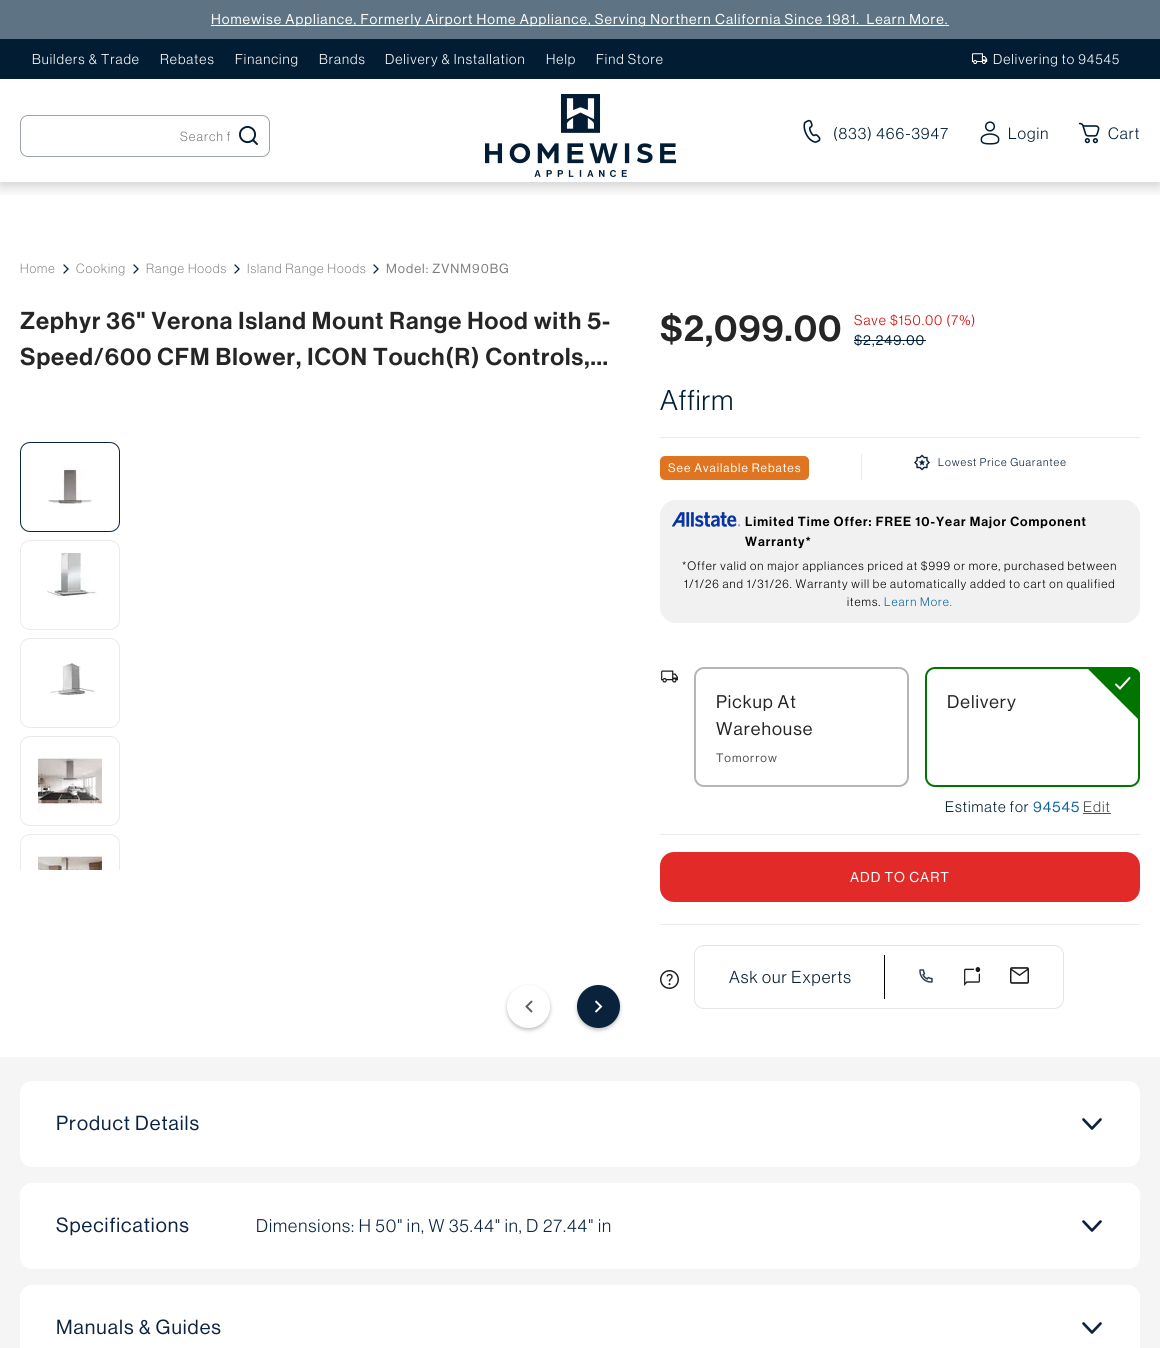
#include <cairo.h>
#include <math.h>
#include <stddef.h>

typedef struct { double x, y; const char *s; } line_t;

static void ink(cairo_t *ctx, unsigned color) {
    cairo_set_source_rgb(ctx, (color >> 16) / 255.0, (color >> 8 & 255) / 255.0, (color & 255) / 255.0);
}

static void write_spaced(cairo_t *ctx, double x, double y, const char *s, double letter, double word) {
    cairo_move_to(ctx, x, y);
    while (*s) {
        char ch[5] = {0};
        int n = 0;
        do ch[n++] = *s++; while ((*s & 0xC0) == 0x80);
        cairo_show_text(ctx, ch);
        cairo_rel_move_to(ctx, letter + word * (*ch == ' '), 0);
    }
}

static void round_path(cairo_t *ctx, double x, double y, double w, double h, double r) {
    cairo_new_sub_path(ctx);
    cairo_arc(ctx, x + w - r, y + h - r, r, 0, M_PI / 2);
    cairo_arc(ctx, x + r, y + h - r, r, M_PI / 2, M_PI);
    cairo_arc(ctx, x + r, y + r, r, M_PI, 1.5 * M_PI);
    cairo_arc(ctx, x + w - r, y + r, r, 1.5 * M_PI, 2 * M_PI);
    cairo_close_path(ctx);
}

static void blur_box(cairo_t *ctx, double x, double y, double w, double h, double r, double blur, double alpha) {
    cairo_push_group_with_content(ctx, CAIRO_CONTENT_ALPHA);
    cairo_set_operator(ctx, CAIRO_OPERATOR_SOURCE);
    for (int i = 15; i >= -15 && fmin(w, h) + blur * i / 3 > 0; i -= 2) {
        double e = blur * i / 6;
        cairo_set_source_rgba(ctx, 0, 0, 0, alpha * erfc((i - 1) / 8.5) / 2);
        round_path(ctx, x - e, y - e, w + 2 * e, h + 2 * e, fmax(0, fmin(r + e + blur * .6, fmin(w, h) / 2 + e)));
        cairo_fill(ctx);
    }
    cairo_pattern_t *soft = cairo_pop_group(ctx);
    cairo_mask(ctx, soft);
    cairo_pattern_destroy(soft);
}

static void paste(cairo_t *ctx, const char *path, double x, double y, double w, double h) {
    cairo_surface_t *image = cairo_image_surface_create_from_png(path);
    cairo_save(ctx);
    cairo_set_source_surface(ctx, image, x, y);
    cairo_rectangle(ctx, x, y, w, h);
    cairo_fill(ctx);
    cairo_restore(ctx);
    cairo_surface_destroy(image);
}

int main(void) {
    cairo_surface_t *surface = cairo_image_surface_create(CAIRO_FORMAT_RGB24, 1160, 1348);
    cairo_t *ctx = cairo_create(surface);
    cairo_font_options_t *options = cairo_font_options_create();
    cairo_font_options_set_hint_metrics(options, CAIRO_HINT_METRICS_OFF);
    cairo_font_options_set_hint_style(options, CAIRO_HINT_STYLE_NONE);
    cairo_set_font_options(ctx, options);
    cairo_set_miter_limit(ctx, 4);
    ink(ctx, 0xFFFFFF);
    cairo_paint(ctx);
    cairo_save(ctx);
    cairo_rectangle(ctx, 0, 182, 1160, 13);
    cairo_clip(ctx);
    ink(ctx, 0x000000);
    blur_box(ctx, 0, 4, 1160, 182, 0, 7, 0.2);
    cairo_restore(ctx);
    ink(ctx, 0x5E7485);
    cairo_rectangle(ctx, 0, 0, 1160, 39);
    cairo_fill(ctx);
    ink(ctx, 0xFFFFFF);
    cairo_rectangle(ctx, 211, 25, 738, 1);
    cairo_fill(ctx);
    cairo_select_font_face(ctx, "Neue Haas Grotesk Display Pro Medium", CAIRO_FONT_SLANT_NORMAL, CAIRO_FONT_WEIGHT_NORMAL);
    cairo_set_font_size(ctx, 14);
    write_spaced(ctx, 211, 24, "Homewise Appliance, Formerly Airport Home Appliance, Serving Northern California Since 1981.  Learn More.", 1, 0);
    ink(ctx, 0x021C33);
    cairo_rectangle(ctx, 0, 39, 1160, 40);
    cairo_fill(ctx);
    cairo_select_font_face(ctx, "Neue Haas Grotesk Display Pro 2", CAIRO_FONT_SLANT_NORMAL, CAIRO_FONT_WEIGHT_NORMAL);
    ink(ctx, 0xFFFFFF);
    {
        static const line_t items[] = {
            {32, 64, "Builders & Trade"},
            {160, 64, "Rebates"},
            {235, 64, "Financing"},
            {319, 64, "Brands"},
            {385, 64, "Delivery & Installation"},
            {546, 64, "Help"},
            {596, 64, "Find Store"},
        };
        for (size_t i = 0; i < sizeof items / sizeof *items; i++) {
            write_spaced(ctx, items[i].x, items[i].y, items[i].s, 1, 0);
        }
    }
    paste(ctx, "media/1.png", 971, 53, 17, 11);
    write_spaced(ctx, 993, 64, "Delivering to 94545", 1, 0);
    round_path(ctx, 20.5, 115.5, 249, 41, 7.5);
    ink(ctx, 0x9CA3AF);
    cairo_set_line_width(ctx, 1);
    cairo_stroke(ctx);
    cairo_set_font_size(ctx, 13);
    ink(ctx, 0x7C7C7C);
    write_spaced(ctx, 180, 141, "Search f", 1, 0);
    paste(ctx, "media/2.png", 239, 126, 19, 19);
    paste(ctx, "media/3.png", 485, 94, 191, 83);
    paste(ctx, "media/4.png", 803, 119, 18, 24);
    cairo_set_font_size(ctx, 16);
    ink(ctx, 0x021C33);
    write_spaced(ctx, 833, 139, "(833) 466-3947", 1, 0);
    paste(ctx, "media/5.png", 980, 121, 20, 24);
    write_spaced(ctx, 1008, 139, "Login", 1, 0);
    paste(ctx, "media/6.png", 1078, 122, 22, 22);
    write_spaced(ctx, 1108, 139, "Cart", 1, 0);
    ink(ctx, 0xF5F5F5);
    cairo_rectangle(ctx, 0, 1057, 1160, 291);
    cairo_fill(ctx);
    cairo_select_font_face(ctx, "Neue Haas Grotesk Display Pro", CAIRO_FONT_SLANT_NORMAL, CAIRO_FONT_WEIGHT_NORMAL);
    cairo_set_font_size(ctx, 13);
    ink(ctx, 0x737373);
    write_spaced(ctx, 20, 273, "Home", 1, 0);
    cairo_new_path(ctx);
    cairo_move_to(ctx, 64, 273);
    cairo_line_to(ctx, 68, 269);
    cairo_line_to(ctx, 64, 265);
    ink(ctx, 0x0B223C);
    cairo_set_line_width(ctx, 1.3);
    cairo_set_line_cap(ctx, CAIRO_LINE_CAP_ROUND);
    cairo_stroke(ctx);
    ink(ctx, 0x737373);
    write_spaced(ctx, 76, 273, "Cooking", 1, 0);
    cairo_new_path(ctx);
    cairo_move_to(ctx, 134, 273);
    cairo_line_to(ctx, 138, 269);
    cairo_line_to(ctx, 134, 265);
    ink(ctx, 0x0B223C);
    cairo_stroke(ctx);
    ink(ctx, 0x737373);
    write_spaced(ctx, 146, 273, "Range Hoods", 1, 0);
    cairo_new_path(ctx);
    cairo_move_to(ctx, 235, 273);
    cairo_line_to(ctx, 239, 269);
    cairo_line_to(ctx, 235, 265);
    ink(ctx, 0x0B223C);
    cairo_stroke(ctx);
    ink(ctx, 0x737373);
    write_spaced(ctx, 247, 273, "Island Range Hoods", 1, 0);
    cairo_new_path(ctx);
    cairo_move_to(ctx, 374, 273);
    cairo_line_to(ctx, 378, 269);
    cairo_line_to(ctx, 374, 265);
    ink(ctx, 0x0B223C);
    cairo_stroke(ctx);
    cairo_select_font_face(ctx, "Neue Haas Grotesk Display Pro Medium", CAIRO_FONT_SLANT_NORMAL, CAIRO_FONT_WEIGHT_NORMAL);
    ink(ctx, 0x7C7C7C);
    write_spaced(ctx, 386, 273, "Model: ZVNM90BG", 1, 0);
    cairo_select_font_face(ctx, "Neue Haas Grotesk Display Pro 2 Medium", CAIRO_FONT_SLANT_NORMAL, CAIRO_FONT_WEIGHT_NORMAL);
    cairo_set_font_size(ctx, 24);
    ink(ctx, 0x252525);
    write_spaced(ctx, 20, 329, "Zephyr 36\" Verona Island Mount Range Hood with 5-", 1, 0);
    write_spaced(ctx, 20, 365, "Speed/600 CFM Blower, ICON Touch(R) Controls,…", 1, 0);
    round_path(ctx, 20.5, 442.5, 99, 89, 9.5);
    ink(ctx, 0x0C2340);
    cairo_set_line_width(ctx, 1);
    cairo_set_line_cap(ctx, CAIRO_LINE_CAP_BUTT);
    cairo_stroke(ctx);
    paste(ctx, "media/7.png", 48, 467, 45, 40);
    round_path(ctx, 20.5, 540.5, 99, 89, 9.5);
    ink(ctx, 0xEAEAEA);
    cairo_stroke(ctx);
    paste(ctx, "media/8.png", 47, 553, 50, 45);
    round_path(ctx, 20.5, 638.5, 99, 89, 9.5);
    cairo_stroke(ctx);
    paste(ctx, "media/9.png", 50, 663, 44, 32);
    round_path(ctx, 20.5, 736.5, 99, 89, 9.5);
    cairo_stroke(ctx);
    paste(ctx, "media/10.png", 38, 757, 64, 55);
    cairo_save(ctx);
    cairo_rectangle(ctx, 20, 437, 106, 433);
    cairo_clip(ctx);
    round_path(ctx, 20.5, 834.5, 99, 89, 9.5);
    cairo_stroke(ctx);
    cairo_restore(ctx);
    paste(ctx, "media/11.png", 38, 855, 64, 15);
    ink(ctx, 0x000000);
    blur_box(ctx, 507, 987, 43, 43, 21.5, 2, 0.25);
    ink(ctx, 0xFFFFFF);
    cairo_arc(ctx, 528.5, 1006.5, 21.5, 0, 2 * M_PI);
    cairo_fill(ctx);
    paste(ctx, "media/12.png", 525, 1000, 8, 13);
    ink(ctx, 0x000000);
    blur_box(ctx, 577, 987, 43, 43, 21.5, 2, 0.25);
    ink(ctx, 0x0B223C);
    cairo_arc(ctx, 598.5, 1006.5, 21.5, 0, 2 * M_PI);
    cairo_fill(ctx);
    paste(ctx, "media/13.png", 594, 1000, 9, 13);
    cairo_set_font_size(ctx, 37);
    ink(ctx, 0x252525);
    write_spaced(ctx, 660, 341, "$2,099.00", 1, 0);
    cairo_select_font_face(ctx, "Neue Haas Grotesk Display Pro 2", CAIRO_FONT_SLANT_NORMAL, CAIRO_FONT_WEIGHT_NORMAL);
    cairo_set_font_size(ctx, 14);
    ink(ctx, 0xD80000);
    write_spaced(ctx, 854, 325, "Save $150.00 (7%)", 1, 0);
    cairo_select_font_face(ctx, "Neue Haas Grotesk Display Pro Medium", CAIRO_FONT_SLANT_NORMAL, CAIRO_FONT_WEIGHT_NORMAL);
    ink(ctx, 0x021C33);
    write_spaced(ctx, 854, 345, "$2,249.00", 1, 0);
    cairo_rectangle(ctx, 854, 340, 72, 1);
    cairo_fill(ctx);
    ink(ctx, 0xEAEAEA);
    cairo_rectangle(ctx, 660, 437, 480, 1);
    cairo_fill(ctx);
    cairo_select_font_face(ctx, "Neue Haas Grotesk Display Pro 2", CAIRO_FONT_SLANT_NORMAL, CAIRO_FONT_WEIGHT_NORMAL);
    cairo_set_font_size(ctx, 28);
    ink(ctx, 0x021C33);
    write_spaced(ctx, 660, 410, "Affirm", 1, 0);
    ink(ctx, 0xEAEAEA);
    cairo_rectangle(ctx, 861, 454, 1, 26);
    cairo_fill(ctx);
    ink(ctx, 0xE07521);
    round_path(ctx, 660, 456, 149, 24, 5);
    cairo_fill(ctx);
    cairo_select_font_face(ctx, "Neue Haas Grotesk Display Pro Medium", CAIRO_FONT_SLANT_NORMAL, CAIRO_FONT_WEIGHT_NORMAL);
    cairo_set_font_size(ctx, 12);
    ink(ctx, 0xFFFFFF);
    write_spaced(ctx, 668, 472, "See Available Rebates", 1, 0);
    paste(ctx, "media/14.png", 914, 454, 16, 17);
    cairo_select_font_face(ctx, "Neue Haas Grotesk Display Pro 2", CAIRO_FONT_SLANT_NORMAL, CAIRO_FONT_WEIGHT_NORMAL);
    cairo_set_font_size(ctx, 11);
    ink(ctx, 0x021C33);
    write_spaced(ctx, 938, 466, "Lowest Price Guarantee", 1, 0);
    ink(ctx, 0xF1F1F1);
    round_path(ctx, 660, 500, 480, 123, 16);
    cairo_fill(ctx);
    paste(ctx, "media/15.png", 672, 512, 68, 15);
    cairo_select_font_face(ctx, "Neue Haas Grotesk Display Pro 2 Medium", CAIRO_FONT_SLANT_NORMAL, CAIRO_FONT_WEIGHT_NORMAL);
    cairo_set_font_size(ctx, 13);
    ink(ctx, 0x000000);
    write_spaced(ctx, 745, 526, "Limited Time Offer: FREE 10-Year Major Component", 1, 0);
    write_spaced(ctx, 745, 546, "Warranty*", 1, 0);
    cairo_select_font_face(ctx, "Neue Haas Grotesk Display Pro 2", CAIRO_FONT_SLANT_NORMAL, CAIRO_FONT_WEIGHT_NORMAL);
    cairo_set_font_size(ctx, 12);
    {
        static const line_t items[] = {
            {682, 570, "*Offer valid on major appliances priced at $999 or more, purchased between"},
            {684, 588, "1/1/26 and 1/31/26. Warranty will be automatically added to cart on qualified"},
            {847, 606, "items."},
        };
        for (size_t i = 0; i < sizeof items / sizeof *items; i++) {
            write_spaced(ctx, items[i].x, items[i].y, items[i].s, 1, 0);
        }
    }
    ink(ctx, 0x0B62A0);
    write_spaced(ctx, 884, 606, "Learn More.", 1, 0);
    ink(ctx, 0xEAEAEA);
    cairo_rectangle(ctx, 660, 834, 480, 1);
    cairo_fill(ctx);
    paste(ctx, "media/16.png", 661, 670, 17, 13);
    round_path(ctx, 695, 668, 213, 118, 9);
    ink(ctx, 0xB5B5B5);
    cairo_set_line_width(ctx, 2);
    cairo_stroke(ctx);
    cairo_select_font_face(ctx, "Neue Haas Grotesk Display Pro Medium", CAIRO_FONT_SLANT_NORMAL, CAIRO_FONT_WEIGHT_NORMAL);
    cairo_set_font_size(ctx, 18);
    ink(ctx, 0x252525);
    write_spaced(ctx, 716, 708, "Pickup At", 1, 0);
    write_spaced(ctx, 716, 735, "Warehouse", 1, 0);
    cairo_set_font_size(ctx, 12);
    ink(ctx, 0x4F4F4F);
    write_spaced(ctx, 716, 762, "Tomorrow", 1, 0);
    round_path(ctx, 926, 668, 213, 118, 9);
    ink(ctx, 0x007600);
    cairo_stroke(ctx);
    cairo_set_font_size(ctx, 18);
    ink(ctx, 0x252525);
    write_spaced(ctx, 947, 708, "Delivery", 1, 0);
    ink(ctx, 0x007600);
    cairo_new_path(ctx);
    cairo_move_to(ctx, 1086, 667);
    cairo_line_to(ctx, 1133, 668);
    cairo_line_to(ctx, 1138, 670);
    cairo_line_to(ctx, 1140, 673);
    cairo_line_to(ctx, 1140, 721);
    cairo_close_path(ctx);
    cairo_fill(ctx);
    cairo_new_path(ctx);
    cairo_move_to(ctx, 1116, 684.5);
    cairo_line_to(ctx, 1120, 688.5);
    cairo_line_to(ctx, 1129.5, 678);
    ink(ctx, 0xFFFFFF);
    cairo_set_line_cap(ctx, CAIRO_LINE_CAP_ROUND);
    cairo_stroke(ctx);
    cairo_select_font_face(ctx, "Neue Haas Grotesk Display Pro 2", CAIRO_FONT_SLANT_NORMAL, CAIRO_FONT_WEIGHT_NORMAL);
    cairo_set_font_size(ctx, 15);
    ink(ctx, 0x021C33);
    write_spaced(ctx, 945, 812, "Estimate for", 1, 0);
    cairo_select_font_face(ctx, "Neue Haas Grotesk Display Pro Medium", CAIRO_FONT_SLANT_NORMAL, CAIRO_FONT_WEIGHT_NORMAL);
    ink(ctx, 0x0B62A0);
    write_spaced(ctx, 1033, 812, "94545", 1, 0);
    cairo_select_font_face(ctx, "Neue Haas Grotesk Display Pro 2", CAIRO_FONT_SLANT_NORMAL, CAIRO_FONT_WEIGHT_NORMAL);
    ink(ctx, 0x4F4F4F);
    write_spaced(ctx, 1083, 812, "Edit", 1, 0);
    cairo_rectangle(ctx, 1083, 813, 28, 1);
    cairo_fill(ctx);
    ink(ctx, 0xEAEAEA);
    cairo_rectangle(ctx, 660, 924, 480, 1);
    cairo_fill(ctx);
    ink(ctx, 0xE22B28);
    round_path(ctx, 660, 852, 480, 50, 14);
    cairo_fill(ctx);
    cairo_select_font_face(ctx, "Neue Haas Grotesk Display Pro Medium", CAIRO_FONT_SLANT_NORMAL, CAIRO_FONT_WEIGHT_NORMAL);
    cairo_set_font_size(ctx, 14);
    ink(ctx, 0xFFFFFF);
    write_spaced(ctx, 850, 882, "ADD TO CART", 1, 0);
    paste(ctx, "media/17.png", 660, 970, 19, 19);
    round_path(ctx, 694.5, 945.5, 369, 63, 9.5);
    ink(ctx, 0xE5E5E5);
    cairo_set_line_width(ctx, 1);
    cairo_set_line_cap(ctx, CAIRO_LINE_CAP_BUTT);
    cairo_stroke(ctx);
    cairo_select_font_face(ctx, "Neue Haas Grotesk Display Pro 2", CAIRO_FONT_SLANT_NORMAL, CAIRO_FONT_WEIGHT_NORMAL);
    cairo_set_font_size(ctx, 17);
    ink(ctx, 0x021C33);
    write_spaced(ctx, 729, 983, "Ask our Experts", 1, 0);
    ink(ctx, 0x000000);
    cairo_rectangle(ctx, 884, 955, 1, 44);
    cairo_fill(ctx);
    paste(ctx, "media/18.png", 919, 969, 14, 14);
    paste(ctx, "media/19.png", 964, 967, 17, 19);
    paste(ctx, "media/20.png", 1010, 967, 19, 17);
    ink(ctx, 0xFFFFFF);
    round_path(ctx, 20, 1081, 1120, 86, 12);
    cairo_fill(ctx);
    cairo_select_font_face(ctx, "Neue Haas Grotesk Display Pro Medium", CAIRO_FONT_SLANT_NORMAL, CAIRO_FONT_WEIGHT_NORMAL);
    cairo_set_font_size(ctx, 20);
    ink(ctx, 0x0C2340);
    write_spaced(ctx, 56, 1130, "Product Details", 1, 0);
    cairo_new_path(ctx);
    cairo_move_to(ctx, 1083.5, 1119.5);
    cairo_line_to(ctx, 1092, 1128.5);
    cairo_line_to(ctx, 1100.5, 1119.5);
    cairo_set_line_width(ctx, 2.7);
    cairo_set_line_cap(ctx, CAIRO_LINE_CAP_ROUND);
    cairo_set_line_join(ctx, CAIRO_LINE_JOIN_ROUND);
    cairo_stroke(ctx);
    ink(ctx, 0xFFFFFF);
    round_path(ctx, 20, 1183, 1120, 86, 12);
    cairo_fill(ctx);
    ink(ctx, 0x0C2340);
    write_spaced(ctx, 56, 1232, "Specifications", 1, 0);
    cairo_select_font_face(ctx, "Neue Haas Grotesk Display Pro 2", CAIRO_FONT_SLANT_NORMAL, CAIRO_FONT_WEIGHT_NORMAL);
    cairo_set_font_size(ctx, 18);
    write_spaced(ctx, 256, 1232, "Dimensions: H 50\" in, W 35.44\" in, D 27.44\" in", 1, 0);
    cairo_new_path(ctx);
    cairo_move_to(ctx, 1083.5, 1221.5);
    cairo_line_to(ctx, 1092, 1230.5);
    cairo_line_to(ctx, 1100.5, 1221.5);
    cairo_stroke(ctx);
    ink(ctx, 0xFFFFFF);
    round_path(ctx, 20, 1285, 1120, 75, 12);
    cairo_fill(ctx);
    cairo_select_font_face(ctx, "Neue Haas Grotesk Display Pro Medium", CAIRO_FONT_SLANT_NORMAL, CAIRO_FONT_WEIGHT_NORMAL);
    cairo_set_font_size(ctx, 20);
    ink(ctx, 0x0C2340);
    write_spaced(ctx, 56, 1334, "Manuals & Guides", 1, 0);
    cairo_new_path(ctx);
    cairo_move_to(ctx, 1083.5, 1323.5);
    cairo_line_to(ctx, 1092, 1332.5);
    cairo_line_to(ctx, 1100.5, 1323.5);
    cairo_stroke(ctx);
    cairo_surface_write_to_png(surface, "image.png");
    cairo_font_options_destroy(options);
    cairo_destroy(ctx);
    cairo_surface_destroy(surface);
    return 0;
}
